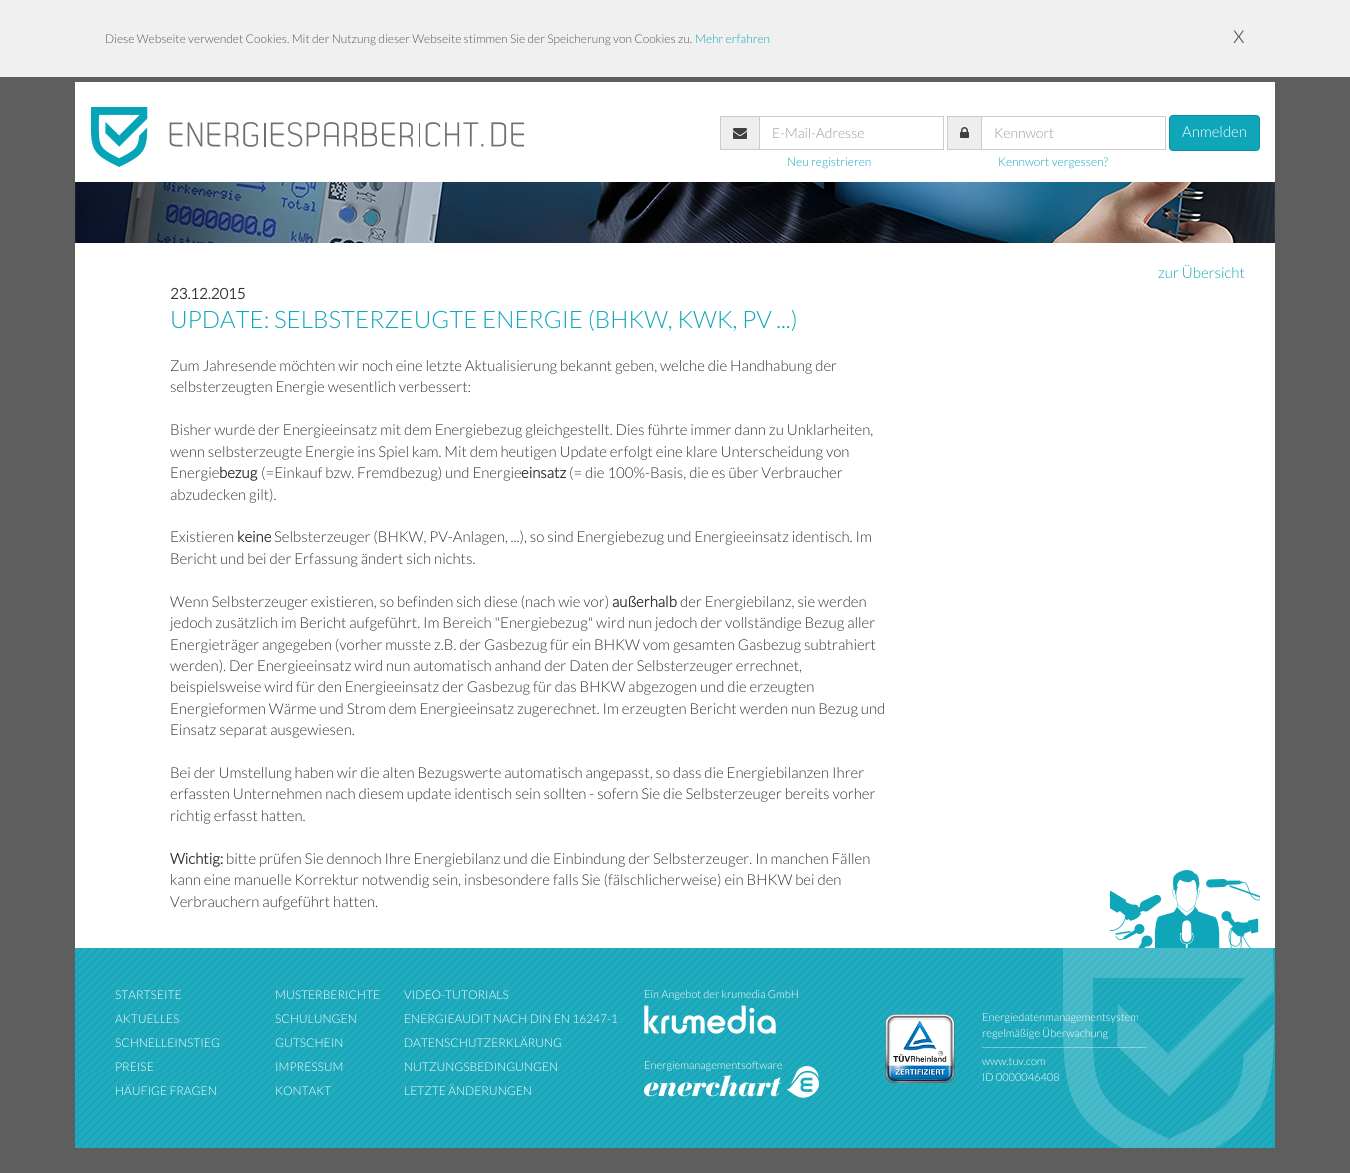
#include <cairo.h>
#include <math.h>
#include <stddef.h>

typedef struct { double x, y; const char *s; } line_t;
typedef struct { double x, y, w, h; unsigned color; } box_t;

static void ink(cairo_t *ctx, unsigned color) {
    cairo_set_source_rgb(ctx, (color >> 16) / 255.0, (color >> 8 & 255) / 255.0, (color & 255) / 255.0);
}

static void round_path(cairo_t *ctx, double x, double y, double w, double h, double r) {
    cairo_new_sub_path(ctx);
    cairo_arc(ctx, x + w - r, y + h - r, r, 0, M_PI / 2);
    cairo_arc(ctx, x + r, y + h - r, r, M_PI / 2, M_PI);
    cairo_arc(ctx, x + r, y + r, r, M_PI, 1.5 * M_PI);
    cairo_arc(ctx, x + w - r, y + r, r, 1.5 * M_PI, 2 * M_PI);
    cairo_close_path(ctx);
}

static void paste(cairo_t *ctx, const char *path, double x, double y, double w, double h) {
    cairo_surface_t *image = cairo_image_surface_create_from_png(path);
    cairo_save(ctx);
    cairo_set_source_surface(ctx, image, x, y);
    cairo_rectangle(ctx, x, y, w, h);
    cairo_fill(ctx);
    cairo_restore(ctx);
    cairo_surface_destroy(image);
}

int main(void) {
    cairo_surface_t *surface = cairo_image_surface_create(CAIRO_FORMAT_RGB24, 1350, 1173);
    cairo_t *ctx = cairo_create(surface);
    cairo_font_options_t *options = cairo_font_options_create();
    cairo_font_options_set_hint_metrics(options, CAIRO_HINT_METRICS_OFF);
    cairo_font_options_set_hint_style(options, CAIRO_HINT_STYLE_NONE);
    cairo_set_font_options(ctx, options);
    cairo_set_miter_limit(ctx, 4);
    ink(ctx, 0x5E5E5E);
    cairo_paint(ctx);
    ink(ctx, 0xF0F0F0);
    cairo_rectangle(ctx, 0, 0, 1350, 77);
    cairo_fill(ctx);
    cairo_select_font_face(ctx, "Lato Light", CAIRO_FONT_SLANT_NORMAL, CAIRO_FONT_WEIGHT_NORMAL);
    cairo_set_font_size(ctx, 12);
    ink(ctx, 0x555555);
    cairo_move_to(ctx, 105, 43);
    cairo_show_text(ctx, "Diese Webseite verwendet Cookies. Mit der Nutzung dieser Webseite stimmen Sie der Speicherung von Cookies zu.");
    ink(ctx, 0x0FA6B9);
    cairo_move_to(ctx, 695, 43);
    cairo_show_text(ctx, "Mehr erfahren");
    cairo_set_font_size(ctx, 25);
    ink(ctx, 0x555555);
    cairo_move_to(ctx, 1233, 43);
    cairo_show_text(ctx, "x");
    ink(ctx, 0xFFFFFF);
    cairo_rectangle(ctx, 75, 82, 1200, 866);
    cairo_fill(ctx);
    paste(ctx, "media/1.png", 90, 107, 435, 60);
    {
        static const box_t items[] = {
            {721, 117, 38, 32, 0xEEEEEE},
            {720, 116, 39, 1, 0xCCCCCC},
            {720, 149, 39, 1, 0xCCCCCC},
            {720, 116, 1, 34, 0xCCCCCC},
        };
        for (size_t i = 0; i < sizeof items / sizeof *items; i++) {
            ink(ctx, items[i].color);
            cairo_rectangle(ctx, items[i].x, items[i].y, items[i].w, items[i].h);
            cairo_fill(ctx);
        }
    }
    paste(ctx, "media/2.png", 733, 128, 14, 11);
    cairo_rectangle(ctx, 759.5, 116.5, 184, 33);
    cairo_set_line_width(ctx, 1);
    cairo_stroke(ctx);
    cairo_set_font_size(ctx, 14);
    ink(ctx, 0x999999);
    cairo_move_to(ctx, 772, 138);
    cairo_show_text(ctx, "E-Mail-Adresse");
    {
        static const box_t items[] = {
            {948, 117, 33, 32, 0xEEEEEE},
            {947, 116, 34, 1, 0xCCCCCC},
            {947, 149, 34, 1, 0xCCCCCC},
            {947, 116, 1, 34, 0xCCCCCC},
        };
        for (size_t i = 0; i < sizeof items / sizeof *items; i++) {
            ink(ctx, items[i].color);
            cairo_rectangle(ctx, items[i].x, items[i].y, items[i].w, items[i].h);
            cairo_fill(ctx);
        }
    }
    paste(ctx, "media/3.png", 960, 127, 9, 11);
    cairo_rectangle(ctx, 981.5, 116.5, 184, 33);
    cairo_stroke(ctx);
    ink(ctx, 0x999999);
    cairo_move_to(ctx, 994, 138);
    cairo_show_text(ctx, "Kennwort");
    ink(ctx, 0x0FA6B9);
    round_path(ctx, 1169.5, 115.5, 90, 35, 3.5);
    cairo_fill_preserve(ctx);
    ink(ctx, 0x0D91A1);
    cairo_stroke(ctx);
    cairo_set_font_size(ctx, 15);
    ink(ctx, 0xFFFFFF);
    cairo_move_to(ctx, 1182, 137);
    cairo_show_text(ctx, "Anmelden");
    cairo_set_font_size(ctx, 12);
    ink(ctx, 0x0FA6B9);
    cairo_move_to(ctx, 787, 166);
    cairo_show_text(ctx, "Neu registrieren");
    cairo_move_to(ctx, 998, 166);
    cairo_show_text(ctx, "Kennwort vergessen?");
    paste(ctx, "media/4.png", 75, 182, 1200, 61);
    cairo_set_font_size(ctx, 15);
    cairo_move_to(ctx, 1158, 278);
    cairo_show_text(ctx, "zur Übersicht");
    cairo_select_font_face(ctx, "Lato", CAIRO_FONT_SLANT_NORMAL, CAIRO_FONT_WEIGHT_BOLD);
    ink(ctx, 0x333333);
    cairo_move_to(ctx, 170, 299);
    cairo_show_text(ctx, "23.12.2015");
    cairo_select_font_face(ctx, "Lato Light", CAIRO_FONT_SLANT_NORMAL, CAIRO_FONT_WEIGHT_NORMAL);
    cairo_set_font_size(ctx, 24);
    ink(ctx, 0x0FA6B9);
    cairo_move_to(ctx, 170, 328);
    cairo_show_text(ctx, "UPDATE: SELBSTERZEUGTE ENERGIE (BHKW, KWK, PV ...)");
    cairo_set_font_size(ctx, 15);
    ink(ctx, 0x333333);
    {
        static const line_t items[] = {
            {170, 371, "Zum Jahresende möchten wir noch eine letzte Aktualisierung bekannt geben, welche die Handhabung der"},
            {170, 392, "selbsterzeugten Energie wesentlich verbessert:"},
            {170, 435, "Bisher wurde der Energieeinsatz mit dem Energiebezug gleichgestellt. Dies führte immer dann zu Unklarheiten,"},
            {170, 457, "wenn selbsterzeugte Energie ins Spiel kam. Mit dem heutigen Update erfolgt eine klare Unterscheidung von"},
            {170, 478, "Energie"},
        };
        for (size_t i = 0; i < sizeof items / sizeof *items; i++) {
            cairo_move_to(ctx, items[i].x, items[i].y);
            cairo_show_text(ctx, items[i].s);
        }
    }
    cairo_select_font_face(ctx, "Lato", CAIRO_FONT_SLANT_NORMAL, CAIRO_FONT_WEIGHT_BOLD);
    cairo_move_to(ctx, 219, 478);
    cairo_show_text(ctx, "bezug");
    cairo_select_font_face(ctx, "Lato Light", CAIRO_FONT_SLANT_NORMAL, CAIRO_FONT_WEIGHT_NORMAL);
    cairo_move_to(ctx, 261, 478);
    cairo_show_text(ctx, "(=Einkauf bzw. Fremdbezug) und Energie");
    cairo_select_font_face(ctx, "Lato", CAIRO_FONT_SLANT_NORMAL, CAIRO_FONT_WEIGHT_BOLD);
    cairo_move_to(ctx, 521, 478);
    cairo_show_text(ctx, "einsatz");
    cairo_select_font_face(ctx, "Lato Light", CAIRO_FONT_SLANT_NORMAL, CAIRO_FONT_WEIGHT_NORMAL);
    {
        static const line_t items[] = {
            {569, 478, "(= die 100%-Basis, die es über Verbraucher"},
            {170, 500, "abzudecken gilt)."},
            {170, 542, "Existieren"},
        };
        for (size_t i = 0; i < sizeof items / sizeof *items; i++) {
            cairo_move_to(ctx, items[i].x, items[i].y);
            cairo_show_text(ctx, items[i].s);
        }
    }
    cairo_select_font_face(ctx, "Lato", CAIRO_FONT_SLANT_NORMAL, CAIRO_FONT_WEIGHT_BOLD);
    cairo_move_to(ctx, 237, 542);
    cairo_show_text(ctx, "keine");
    cairo_select_font_face(ctx, "Lato Light", CAIRO_FONT_SLANT_NORMAL, CAIRO_FONT_WEIGHT_NORMAL);
    {
        static const line_t items[] = {
            {274, 542, "Selbsterzeuger (BHKW, PV-Anlagen, ...), so sind Energiebezug und Energieeinsatz identisch. Im"},
            {170, 564, "Bericht und bei der Erfassung ändert sich nichts."},
            {170, 607, "Wenn Selbsterzeuger existieren, so befinden sich diese (nach wie vor)"},
        };
        for (size_t i = 0; i < sizeof items / sizeof *items; i++) {
            cairo_move_to(ctx, items[i].x, items[i].y);
            cairo_show_text(ctx, items[i].s);
        }
    }
    cairo_select_font_face(ctx, "Lato", CAIRO_FONT_SLANT_NORMAL, CAIRO_FONT_WEIGHT_BOLD);
    cairo_move_to(ctx, 612, 607);
    cairo_show_text(ctx, "außerhalb");
    cairo_select_font_face(ctx, "Lato Light", CAIRO_FONT_SLANT_NORMAL, CAIRO_FONT_WEIGHT_NORMAL);
    {
        static const line_t items[] = {
            {680, 607, "der Energiebilanz, sie werden"},
            {170, 628, "jedoch zusätzlich im Bericht aufgeführt. Im Bereich \"Energiebezug\" wird nun jedoch der vollständige Bezug aller"},
            {170, 650, "Energieträger angegeben (vorher musste z.B. der Gasbezug für ein BHKW vom gesamten Gasbezug subtrahiert"},
            {170, 671, "werden). Der Energieeinsatz wird nun automatisch anhand der Daten der Selbsterzeuger errechnet,"},
            {170, 692, "beispielsweise wird für den Energieeinsatz der Gasbezug für das BHKW abgezogen und die erzeugten"},
            {170, 714, "Energieformen Wärme und Strom dem Energieeinsatz zugerechnet. Im erzeugten Bericht werden nun Bezug und"},
            {170, 735, "Einsatz separat ausgewiesen."},
            {170, 778, "Bei der Umstellung haben wir die alten Bezugswerte automatisch angepasst, so dass die Energiebilanzen Ihrer"},
            {170, 799, "erfassten Unternehmen nach diesem update identisch sein sollten - sofern Sie die Selbsterzeuger bereits vorher"},
            {170, 821, "richtig erfasst hatten."},
        };
        for (size_t i = 0; i < sizeof items / sizeof *items; i++) {
            cairo_move_to(ctx, items[i].x, items[i].y);
            cairo_show_text(ctx, items[i].s);
        }
    }
    cairo_select_font_face(ctx, "Lato", CAIRO_FONT_SLANT_NORMAL, CAIRO_FONT_WEIGHT_BOLD);
    cairo_move_to(ctx, 170, 864);
    cairo_show_text(ctx, "Wichtig:");
    cairo_select_font_face(ctx, "Lato Light", CAIRO_FONT_SLANT_NORMAL, CAIRO_FONT_WEIGHT_NORMAL);
    {
        static const line_t items[] = {
            {226, 864, "bitte prüfen Sie dennoch Ihre Energiebilanz und die Einbindung der Selbsterzeuger. In manchen Fällen"},
            {170, 885, "kann eine manuelle Korrektur notwendig sein, insbesondere falls Sie (fälschlicherweise) ein BHKW bei den"},
            {170, 907, "Verbrauchern aufgeführt hatten."},
        };
        for (size_t i = 0; i < sizeof items / sizeof *items; i++) {
            cairo_move_to(ctx, items[i].x, items[i].y);
            cairo_show_text(ctx, items[i].s);
        }
    }
    paste(ctx, "media/5.png", 1110, 870, 150, 78);
    paste(ctx, "media/6.png", 75, 948, 1200, 200);
    cairo_set_font_size(ctx, 12);
    ink(ctx, 0xFFFFFF);
    {
        static const line_t items[] = {
            {115, 999, "STARTSEITE"},
            {115, 1023, "AKTUELLES"},
            {115, 1047, "SCHNELLEINSTIEG"},
            {115, 1071, "PREISE"},
            {115, 1095, "HÄUFIGE FRAGEN"},
            {275, 999, "MUSTERBERICHTE"},
            {275, 1023, "SCHULUNGEN"},
            {275, 1047, "GUTSCHEIN"},
            {275, 1071, "IMPRESSUM"},
            {275, 1095, "KONTAKT"},
            {404, 999, "VIDEO-TUTORIALS"},
            {404, 1023, "ENERGIEAUDIT NACH DIN EN 16247-1"},
            {404, 1047, "DATENSCHUTZERKLÄRUNG"},
            {404, 1071, "NUTZUNGSBEDINGUNGEN"},
            {404, 1095, "LETZTE ÄNDERUNGEN"},
        };
        for (size_t i = 0; i < sizeof items / sizeof *items; i++) {
            cairo_move_to(ctx, items[i].x, items[i].y);
            cairo_show_text(ctx, items[i].s);
        }
    }
    cairo_set_font_size(ctx, 11);
    cairo_move_to(ctx, 644, 998);
    cairo_show_text(ctx, "Ein Angebot der krumedia GmbH");
    paste(ctx, "media/7.png", 644, 1005, 132, 29);
    cairo_move_to(ctx, 644, 1069);
    cairo_show_text(ctx, "Energiemanagementsoftware");
    paste(ctx, "media/8.png", 644, 1066, 175, 32);
    cairo_save(ctx);
    cairo_rectangle(ctx, 1061, 948, 214, 200);
    cairo_clip(ctx);
    cairo_set_source_rgba(ctx, 1, 1, 1, 0.18);
    cairo_new_path(ctx);
    cairo_move_to(ctx, 1063, 998);
    cairo_line_to(ctx, 1063, 948);
    cairo_line_to(ctx, 1273, 948);
    cairo_line_to(ctx, 1274, 991);
    cairo_line_to(ctx, 1169, 1096);
    cairo_line_to(ctx, 1117, 1046);
    cairo_line_to(ctx, 1118, 1004);
    cairo_line_to(ctx, 1168, 1054);
    cairo_line_to(ctx, 1244, 979);
    cairo_line_to(ctx, 1244, 978);
    cairo_line_to(ctx, 1093, 978);
    cairo_line_to(ctx, 1093, 998);
    cairo_curve_to(ctx, 1092, 1095, 1092, 1102, 1169, 1139);
    cairo_curve_to(ctx, 1227, 1111, 1241, 1100, 1244, 1054);
    cairo_line_to(ctx, 1274, 1024);
    cairo_curve_to(ctx, 1274, 1110, 1261, 1128, 1169, 1172);
    cairo_line_to(ctx, 1168, 1172);
    cairo_curve_to(ctx, 1067, 1124, 1062, 1107, 1063, 998);
    cairo_close_path(ctx);
    cairo_fill(ctx);
    cairo_restore(ctx);
    paste(ctx, "media/9.png", 885, 1013, 70, 70);
    {
        static const line_t items[] = {
            {982, 1021, "Energiedatenmanagementsystem"},
            {982, 1037, "regelmäßige Überwachung"},
            {982, 1046, "______________________________________"},
            {982, 1065, "www.tuv.com"},
            {982, 1081, "ID 0000046408"},
        };
        for (size_t i = 0; i < sizeof items / sizeof *items; i++) {
            cairo_move_to(ctx, items[i].x, items[i].y);
            cairo_show_text(ctx, items[i].s);
        }
    }
    cairo_surface_write_to_png(surface, "image.png");
    cairo_font_options_destroy(options);
    cairo_destroy(ctx);
    cairo_surface_destroy(surface);
    return 0;
}
